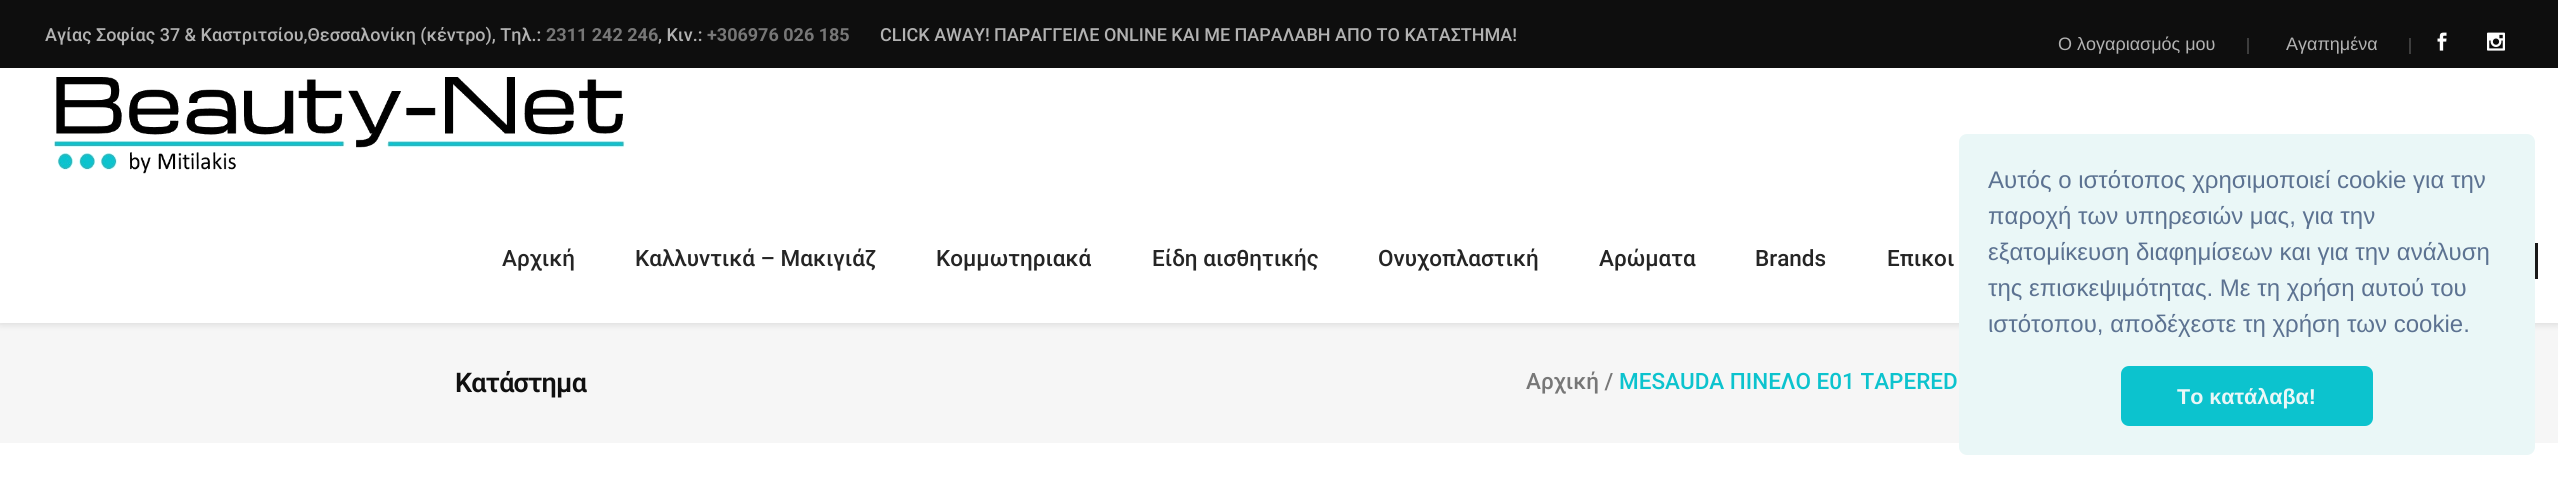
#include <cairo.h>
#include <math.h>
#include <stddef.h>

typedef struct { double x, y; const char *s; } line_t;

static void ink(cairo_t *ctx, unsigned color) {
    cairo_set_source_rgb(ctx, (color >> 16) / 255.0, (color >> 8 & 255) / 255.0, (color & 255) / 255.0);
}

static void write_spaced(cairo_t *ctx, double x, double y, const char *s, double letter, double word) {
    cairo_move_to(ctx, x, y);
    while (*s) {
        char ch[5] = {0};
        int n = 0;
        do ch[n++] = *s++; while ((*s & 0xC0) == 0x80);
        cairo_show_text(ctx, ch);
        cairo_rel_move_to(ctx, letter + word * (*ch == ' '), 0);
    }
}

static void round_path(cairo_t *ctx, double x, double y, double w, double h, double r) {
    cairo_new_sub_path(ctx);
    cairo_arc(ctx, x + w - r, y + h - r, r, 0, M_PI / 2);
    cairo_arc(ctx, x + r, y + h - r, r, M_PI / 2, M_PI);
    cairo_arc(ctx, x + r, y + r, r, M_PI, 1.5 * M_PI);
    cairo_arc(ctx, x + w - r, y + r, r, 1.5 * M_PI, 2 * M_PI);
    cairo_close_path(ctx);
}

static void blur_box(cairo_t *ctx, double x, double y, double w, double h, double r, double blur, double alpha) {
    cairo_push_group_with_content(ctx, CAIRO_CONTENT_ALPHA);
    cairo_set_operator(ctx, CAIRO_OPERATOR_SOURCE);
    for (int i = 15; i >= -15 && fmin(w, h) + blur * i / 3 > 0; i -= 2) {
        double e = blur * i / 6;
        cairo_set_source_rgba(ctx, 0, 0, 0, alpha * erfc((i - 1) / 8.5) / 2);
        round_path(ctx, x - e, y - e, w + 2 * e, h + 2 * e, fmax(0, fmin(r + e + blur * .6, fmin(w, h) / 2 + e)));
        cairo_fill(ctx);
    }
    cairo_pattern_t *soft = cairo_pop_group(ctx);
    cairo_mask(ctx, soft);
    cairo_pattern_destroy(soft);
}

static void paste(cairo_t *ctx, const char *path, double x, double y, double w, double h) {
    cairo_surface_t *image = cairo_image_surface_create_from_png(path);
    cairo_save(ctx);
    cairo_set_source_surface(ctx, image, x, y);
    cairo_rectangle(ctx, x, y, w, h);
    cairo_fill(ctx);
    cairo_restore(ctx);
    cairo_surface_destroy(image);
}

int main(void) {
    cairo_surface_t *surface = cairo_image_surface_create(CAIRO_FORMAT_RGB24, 2558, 478);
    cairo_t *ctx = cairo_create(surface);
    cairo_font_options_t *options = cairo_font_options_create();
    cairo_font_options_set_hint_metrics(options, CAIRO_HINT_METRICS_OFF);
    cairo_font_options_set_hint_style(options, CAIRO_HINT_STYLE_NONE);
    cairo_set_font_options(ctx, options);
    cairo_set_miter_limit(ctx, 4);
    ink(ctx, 0xFFFFFF);
    cairo_paint(ctx);
    ink(ctx, 0xF6F6F6);
    cairo_rectangle(ctx, 0, 323, 2558, 120);
    cairo_fill(ctx);
    cairo_save(ctx);
    cairo_set_fill_rule(ctx, CAIRO_FILL_RULE_EVEN_ODD);
    cairo_new_path(ctx);
    cairo_move_to(ctx, 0, 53);
    cairo_line_to(ctx, 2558, 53);
    cairo_line_to(ctx, 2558, 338);
    cairo_line_to(ctx, 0, 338);
    cairo_close_path(ctx);
    cairo_move_to(ctx, 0, 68);
    cairo_line_to(ctx, 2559, 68);
    cairo_line_to(ctx, 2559, 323);
    cairo_line_to(ctx, 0, 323);
    cairo_close_path(ctx);
    cairo_clip(ctx);
    ink(ctx, 0x000000);
    blur_box(ctx, 0, 68, 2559, 255, 0, 4.5, 0.15);
    cairo_restore(ctx);
    ink(ctx, 0x0E0E0E);
    cairo_rectangle(ctx, 0, 0, 2558, 68);
    cairo_fill(ctx);
    cairo_select_font_face(ctx, "Roboto Medium", CAIRO_FONT_SLANT_NORMAL, CAIRO_FONT_WEIGHT_NORMAL);
    cairo_set_font_size(ctx, 18);
    ink(ctx, 0xB2B2B2);
    cairo_move_to(ctx, 45, 41);
    cairo_show_text(ctx, "Αγίας Σοφίας 37 & Καστριτσίου,Θεσσαλονίκη (κέντρο), Τηλ.:");
    cairo_select_font_face(ctx, "Roboto", CAIRO_FONT_SLANT_NORMAL, CAIRO_FONT_WEIGHT_BOLD);
    ink(ctx, 0x777777);
    cairo_move_to(ctx, 546, 41);
    cairo_show_text(ctx, "2311 242 246");
    cairo_select_font_face(ctx, "Roboto Medium", CAIRO_FONT_SLANT_NORMAL, CAIRO_FONT_WEIGHT_NORMAL);
    ink(ctx, 0xB2B2B2);
    cairo_move_to(ctx, 658, 41);
    cairo_show_text(ctx, ", Κιν.:");
    cairo_select_font_face(ctx, "Roboto", CAIRO_FONT_SLANT_NORMAL, CAIRO_FONT_WEIGHT_BOLD);
    ink(ctx, 0x777777);
    cairo_move_to(ctx, 707, 41);
    cairo_show_text(ctx, "+306976 026 185");
    cairo_select_font_face(ctx, "Roboto Medium", CAIRO_FONT_SLANT_NORMAL, CAIRO_FONT_WEIGHT_NORMAL);
    ink(ctx, 0xB2B2B2);
    cairo_move_to(ctx, 880, 41);
    cairo_show_text(ctx, "CLICK AWAY! ΠΑΡΑΓΓΕΙΛΕ ONLINE ΚΑΙ ΜΕ ΠΑΡΑΛΑΒΗ ΑΠΟ ΤΟ ΚΑΤΑΣΤΗΜΑ!");
    cairo_select_font_face(ctx, "Liberation Sans", CAIRO_FONT_SLANT_NORMAL, CAIRO_FONT_WEIGHT_NORMAL);
    cairo_move_to(ctx, 2058, 50);
    cairo_show_text(ctx, "Ο λογαριασμός μου");
    ink(ctx, 0x3D3D3D);
    cairo_rectangle(ctx, 2247, 38, 2, 16);
    cairo_fill(ctx);
    ink(ctx, 0xB2B2B2);
    cairo_move_to(ctx, 2286, 50);
    cairo_show_text(ctx, "Αγαπημένα");
    ink(ctx, 0x3D3D3D);
    cairo_rectangle(ctx, 2409, 38, 2, 16);
    cairo_fill(ctx);
    paste(ctx, "media/1.png", 2437, 32, 10, 19);
    paste(ctx, "media/2.png", 2487, 32, 18, 19);
    paste(ctx, "media/3.png", 54, 77, 571, 97);
    cairo_select_font_face(ctx, "Roboto Medium", CAIRO_FONT_SLANT_NORMAL, CAIRO_FONT_WEIGHT_NORMAL);
    cairo_set_font_size(ctx, 22.5);
    ink(ctx, 0x252525);
    {
        static const line_t items[] = {
            {502, 266, "Αρχική"},
            {635, 266, "Καλλυντικά – Μακιγιάζ"},
            {936, 266, "Κομμωτηριακά"},
            {1152, 266, "Είδη αισθητικής"},
            {1378, 266, "Ονυχοπλαστική"},
            {1599, 266, "Αρώματα"},
            {1755, 266, "Brands"},
            {1887, 266, "Επικοι"},
        };
        for (size_t i = 0; i < sizeof items / sizeof *items; i++) {
            cairo_move_to(ctx, items[i].x, items[i].y);
            cairo_show_text(ctx, items[i].s);
        }
    }
    ink(ctx, 0x191919);
    cairo_rectangle(ctx, 2535, 243, 3, 36);
    cairo_fill(ctx);
    cairo_select_font_face(ctx, "Roboto SemiBold", CAIRO_FONT_SLANT_NORMAL, CAIRO_FONT_WEIGHT_NORMAL);
    cairo_set_font_size(ctx, 27);
    ink(ctx, 0x101010);
    write_spaced(ctx, 455, 392, "Κατάστημα", -0.75, 0);
    cairo_select_font_face(ctx, "Roboto Medium", CAIRO_FONT_SLANT_NORMAL, CAIRO_FONT_WEIGHT_NORMAL);
    cairo_set_font_size(ctx, 22.5);
    ink(ctx, 0x777777);
    cairo_move_to(ctx, 1526, 389);
    cairo_show_text(ctx, "Αρχική /");
    ink(ctx, 0x0CC3CE);
    cairo_move_to(ctx, 1619, 389);
    cairo_show_text(ctx, "MESAUDA ΠΙΝΕΛΟ E01 TAPERED");
    ink(ctx, 0xEAF7F7);
    round_path(ctx, 1959, 134, 576, 321, 8);
    cairo_fill(ctx);
    cairo_select_font_face(ctx, "Liberation Sans", CAIRO_FONT_SLANT_NORMAL, CAIRO_FONT_WEIGHT_NORMAL);
    cairo_set_font_size(ctx, 24);
    ink(ctx, 0x5C7291);
    {
        static const line_t items[] = {
            {1988, 188, "Αυτός ο ιστότοπος χρησιμοποιεί cookie για την"},
            {1988, 224, "παροχή των υπηρεσιών μας, για την"},
            {1988, 260, "εξατομίκευση διαφημίσεων και για την ανάλυση"},
            {1988, 296, "της επισκεψιμότητας. Με τη χρήση αυτού του"},
            {1988, 332, "ιστότοπου, αποδέχεστε τη χρήση των cookie."},
        };
        for (size_t i = 0; i < sizeof items / sizeof *items; i++) {
            cairo_move_to(ctx, items[i].x, items[i].y);
            cairo_show_text(ctx, items[i].s);
        }
    }
    ink(ctx, 0x0CC3CE);
    round_path(ctx, 2121, 366, 252, 60, 8);
    cairo_fill(ctx);
    cairo_select_font_face(ctx, "Liberation Sans", CAIRO_FONT_SLANT_NORMAL, CAIRO_FONT_WEIGHT_BOLD);
    cairo_set_font_size(ctx, 21.5);
    ink(ctx, 0xEAF7F7);
    cairo_move_to(ctx, 2177, 404);
    cairo_show_text(ctx, "Το κατάλαβα!");
    cairo_surface_write_to_png(surface, "image.png");
    cairo_font_options_destroy(options);
    cairo_destroy(ctx);
    cairo_surface_destroy(surface);
    return 0;
}
